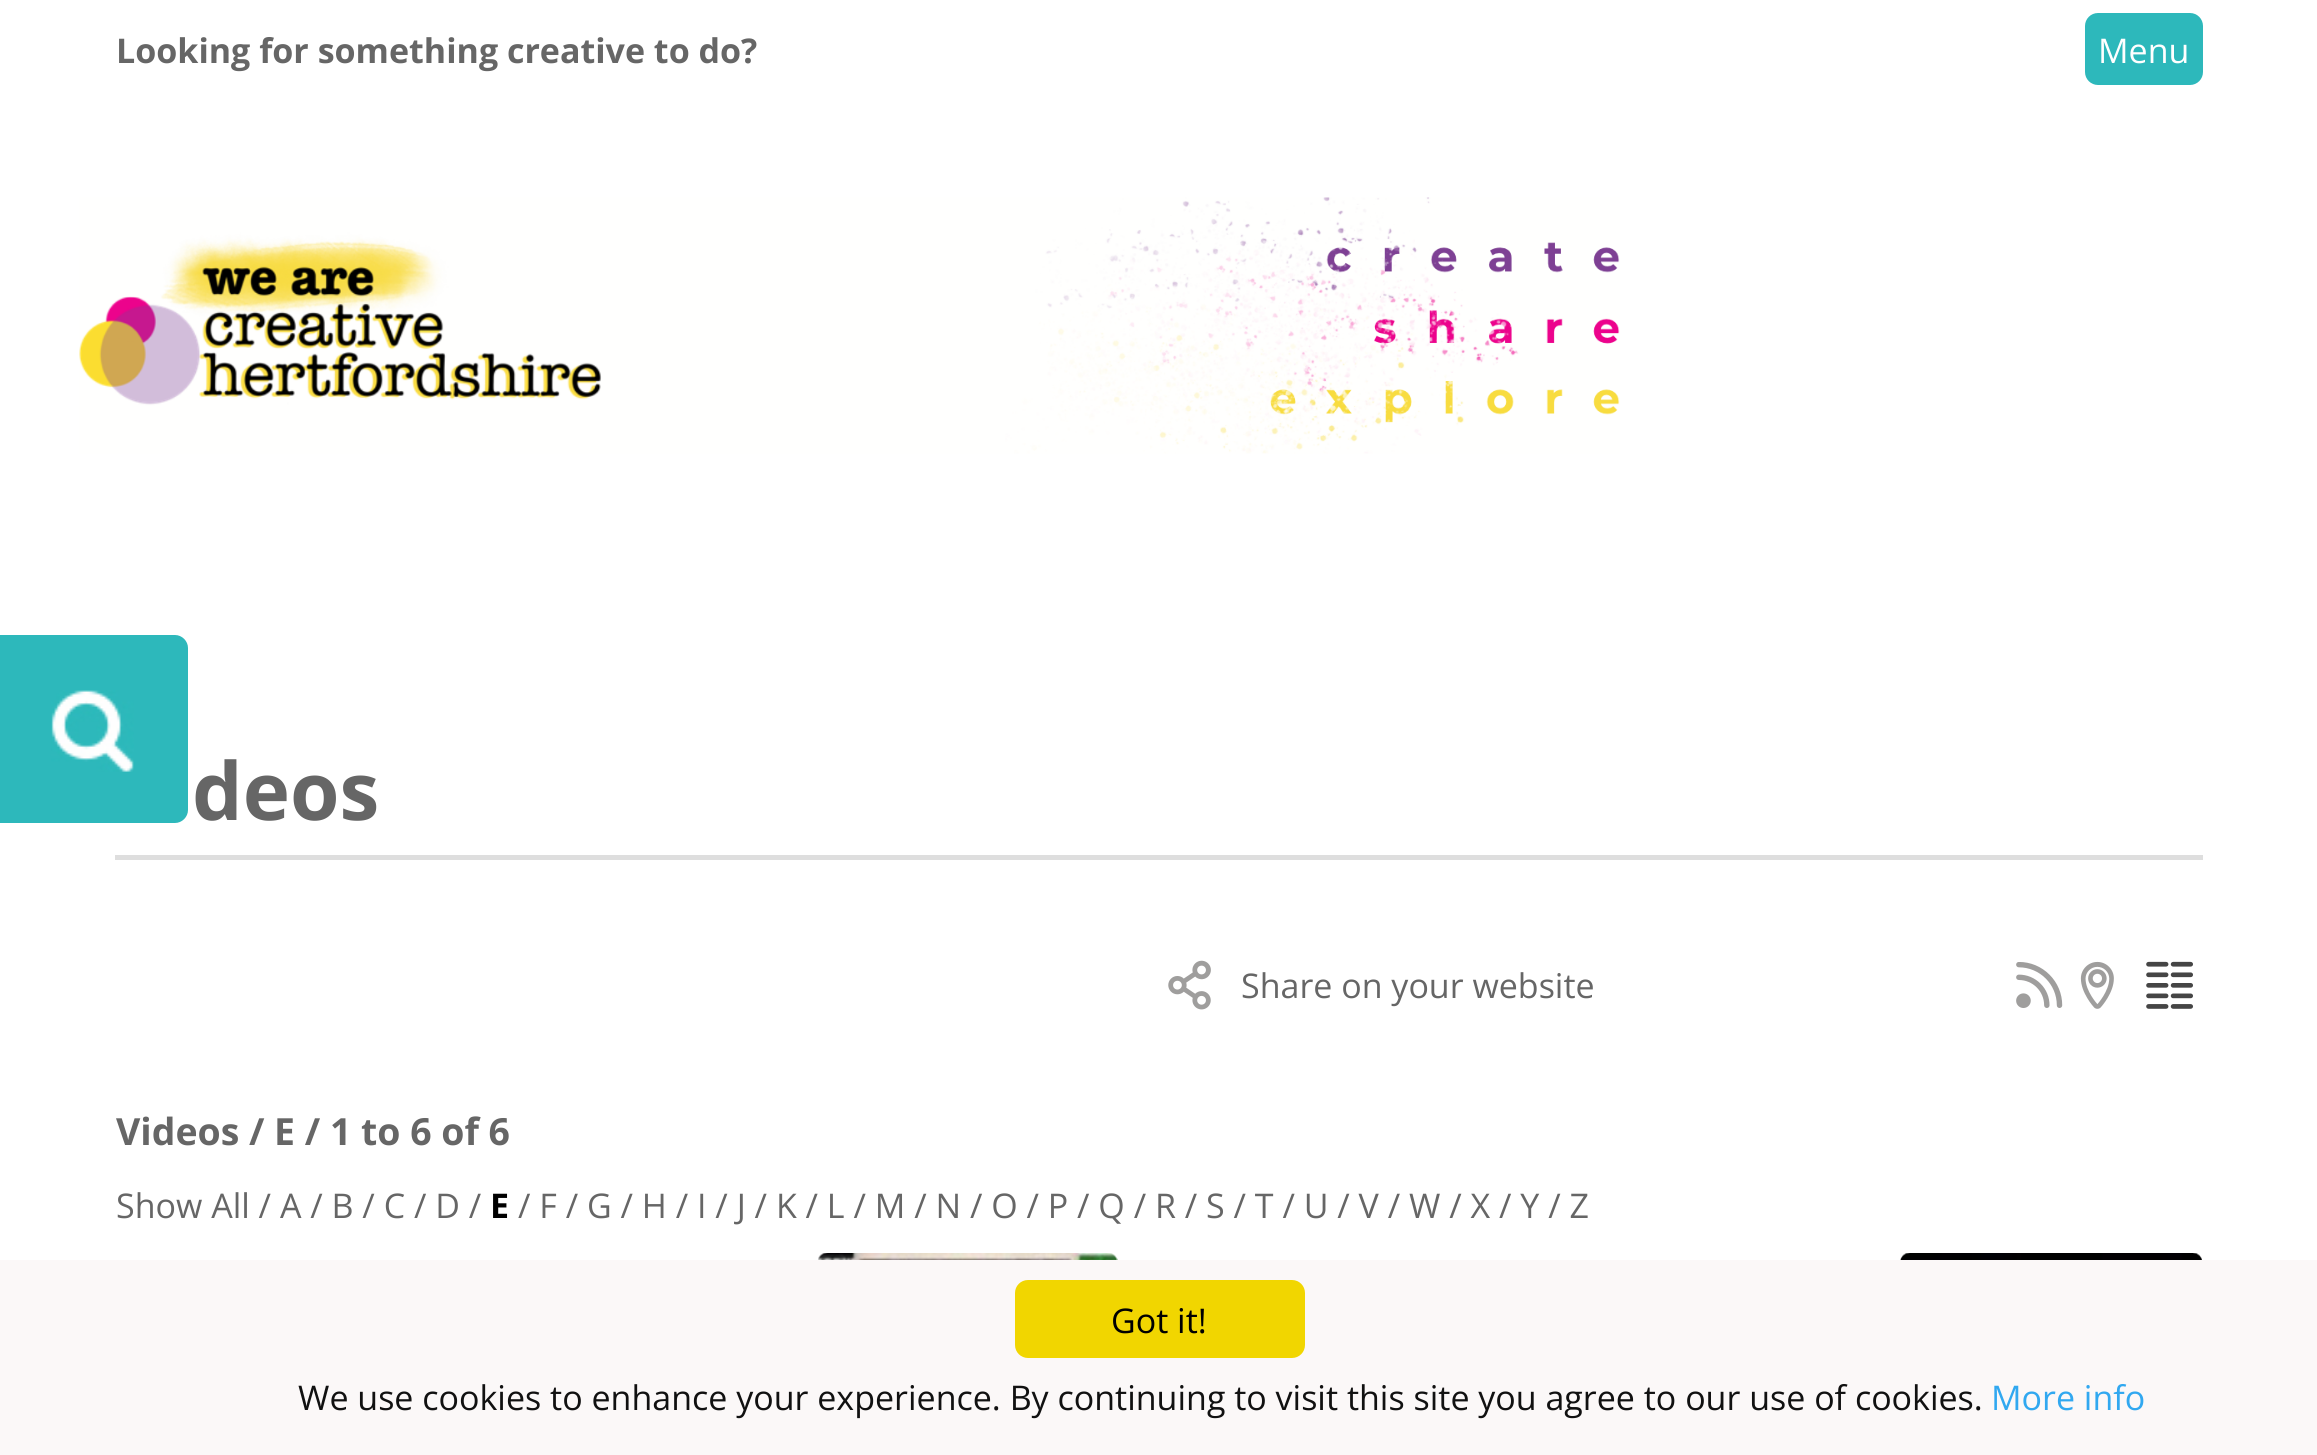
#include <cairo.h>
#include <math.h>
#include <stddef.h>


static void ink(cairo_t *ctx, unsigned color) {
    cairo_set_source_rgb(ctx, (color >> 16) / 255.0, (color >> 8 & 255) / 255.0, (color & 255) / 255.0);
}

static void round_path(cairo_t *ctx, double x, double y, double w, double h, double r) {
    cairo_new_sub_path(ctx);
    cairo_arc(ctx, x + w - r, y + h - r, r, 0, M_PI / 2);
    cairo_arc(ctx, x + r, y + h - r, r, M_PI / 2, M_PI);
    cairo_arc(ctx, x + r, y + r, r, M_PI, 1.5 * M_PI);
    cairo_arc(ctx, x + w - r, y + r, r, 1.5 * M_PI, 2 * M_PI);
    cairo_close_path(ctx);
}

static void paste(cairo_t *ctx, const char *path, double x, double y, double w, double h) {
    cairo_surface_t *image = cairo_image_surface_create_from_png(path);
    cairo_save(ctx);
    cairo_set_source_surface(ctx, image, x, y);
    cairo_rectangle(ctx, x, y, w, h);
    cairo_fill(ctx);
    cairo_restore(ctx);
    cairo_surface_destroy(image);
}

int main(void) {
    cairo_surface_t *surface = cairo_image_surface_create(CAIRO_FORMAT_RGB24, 2317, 1455);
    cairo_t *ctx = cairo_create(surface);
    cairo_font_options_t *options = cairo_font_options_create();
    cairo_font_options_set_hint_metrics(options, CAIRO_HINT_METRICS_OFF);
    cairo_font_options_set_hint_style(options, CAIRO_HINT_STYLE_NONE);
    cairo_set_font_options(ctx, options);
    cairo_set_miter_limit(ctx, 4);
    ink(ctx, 0xFFFFFF);
    cairo_paint(ctx);
    cairo_select_font_face(ctx, "Open Sans", CAIRO_FONT_SLANT_NORMAL, CAIRO_FONT_WEIGHT_BOLD);
    cairo_set_font_size(ctx, 34);
    ink(ctx, 0x666666);
    cairo_move_to(ctx, 116, 63);
    cairo_show_text(ctx, "Looking for something creative to do?");
    ink(ctx, 0x2DB8BB);
    round_path(ctx, 2085, 13, 118, 72, 13);
    cairo_fill(ctx);
    cairo_select_font_face(ctx, "Open Sans", CAIRO_FONT_SLANT_NORMAL, CAIRO_FONT_WEIGHT_NORMAL);
    ink(ctx, 0xFFFFFF);
    cairo_move_to(ctx, 2098, 63);
    cairo_show_text(ctx, "Menu");
    paste(ctx, "media/1.png", 79, 197, 1541, 257);
    cairo_select_font_face(ctx, "Open Sans", CAIRO_FONT_SLANT_NORMAL, CAIRO_FONT_WEIGHT_BOLD);
    cairo_set_font_size(ctx, 80);
    ink(ctx, 0x666666);
    cairo_move_to(ctx, 192, 820);
    cairo_show_text(ctx, "deos");
    ink(ctx, 0xDEDEDE);
    cairo_rectangle(ctx, 115, 855, 2088, 5);
    cairo_fill(ctx);
    ink(ctx, 0x2DB8BB);
    cairo_new_path(ctx);
    cairo_move_to(ctx, 0, 635);
    cairo_line_to(ctx, 175, 635);
    cairo_curve_to(ctx, 182, 635, 188, 641, 188, 648);
    cairo_line_to(ctx, 188, 810);
    cairo_curve_to(ctx, 188, 817, 182, 823, 175, 823);
    cairo_line_to(ctx, 0, 823);
    cairo_close_path(ctx);
    cairo_fill(ctx);
    paste(ctx, "media/2.png", 51, 690, 83, 82);
    paste(ctx, "media/3.png", 1168, 960, 43, 50);
    cairo_select_font_face(ctx, "Open Sans", CAIRO_FONT_SLANT_NORMAL, CAIRO_FONT_WEIGHT_NORMAL);
    cairo_set_font_size(ctx, 34);
    ink(ctx, 0x666666);
    cairo_move_to(ctx, 1241, 998);
    cairo_show_text(ctx, "Share on your website");
    paste(ctx, "media/4.png", 2016, 962, 47, 46);
    paste(ctx, "media/5.png", 2080, 961, 34, 48);
    paste(ctx, "media/6.png", 2146, 961, 47, 48);
    cairo_select_font_face(ctx, "Open Sans", CAIRO_FONT_SLANT_NORMAL, CAIRO_FONT_WEIGHT_BOLD);
    cairo_set_font_size(ctx, 37.4);
    cairo_move_to(ctx, 116, 1145);
    cairo_show_text(ctx, "Videos / E / 1 to 6 of 6");
    cairo_select_font_face(ctx, "Open Sans", CAIRO_FONT_SLANT_NORMAL, CAIRO_FONT_WEIGHT_NORMAL);
    cairo_set_font_size(ctx, 34);
    cairo_move_to(ctx, 116, 1218);
    cairo_show_text(ctx, "Show All / A / B / C / D /");
    cairo_select_font_face(ctx, "Open Sans", CAIRO_FONT_SLANT_NORMAL, CAIRO_FONT_WEIGHT_BOLD);
    ink(ctx, 0x000000);
    cairo_move_to(ctx, 490, 1218);
    cairo_show_text(ctx, "E");
    cairo_select_font_face(ctx, "Open Sans", CAIRO_FONT_SLANT_NORMAL, CAIRO_FONT_WEIGHT_NORMAL);
    ink(ctx, 0x666666);
    cairo_move_to(ctx, 518, 1218);
    cairo_show_text(ctx, "/ F / G / H / I / J / K / L / M / N / O / P / Q / R / S / T / U / V / W / X / Y / Z");
    paste(ctx, "media/7.png", 818, 1253, 300, 7);
    paste(ctx, "media/8.png", 1900, 1253, 302, 7);
    ink(ctx, 0xFBF8F8);
    cairo_rectangle(ctx, 0, 1260, 2317, 195);
    cairo_fill(ctx);
    ink(ctx, 0xF1D600);
    round_path(ctx, 1015, 1280, 290, 78, 13);
    cairo_fill(ctx);
    ink(ctx, 0x000000);
    cairo_move_to(ctx, 1111, 1333);
    cairo_show_text(ctx, "Got it!");
    ink(ctx, 0x111111);
    cairo_move_to(ctx, 298, 1410);
    cairo_show_text(ctx, "We use cookies to enhance your experience. By continuing to visit this site you agree to our use of cookies.");
    ink(ctx, 0x31A8F0);
    cairo_move_to(ctx, 1991, 1410);
    cairo_show_text(ctx, "More info");
    cairo_surface_write_to_png(surface, "image.png");
    cairo_font_options_destroy(options);
    cairo_destroy(ctx);
    cairo_surface_destroy(surface);
    return 0;
}
